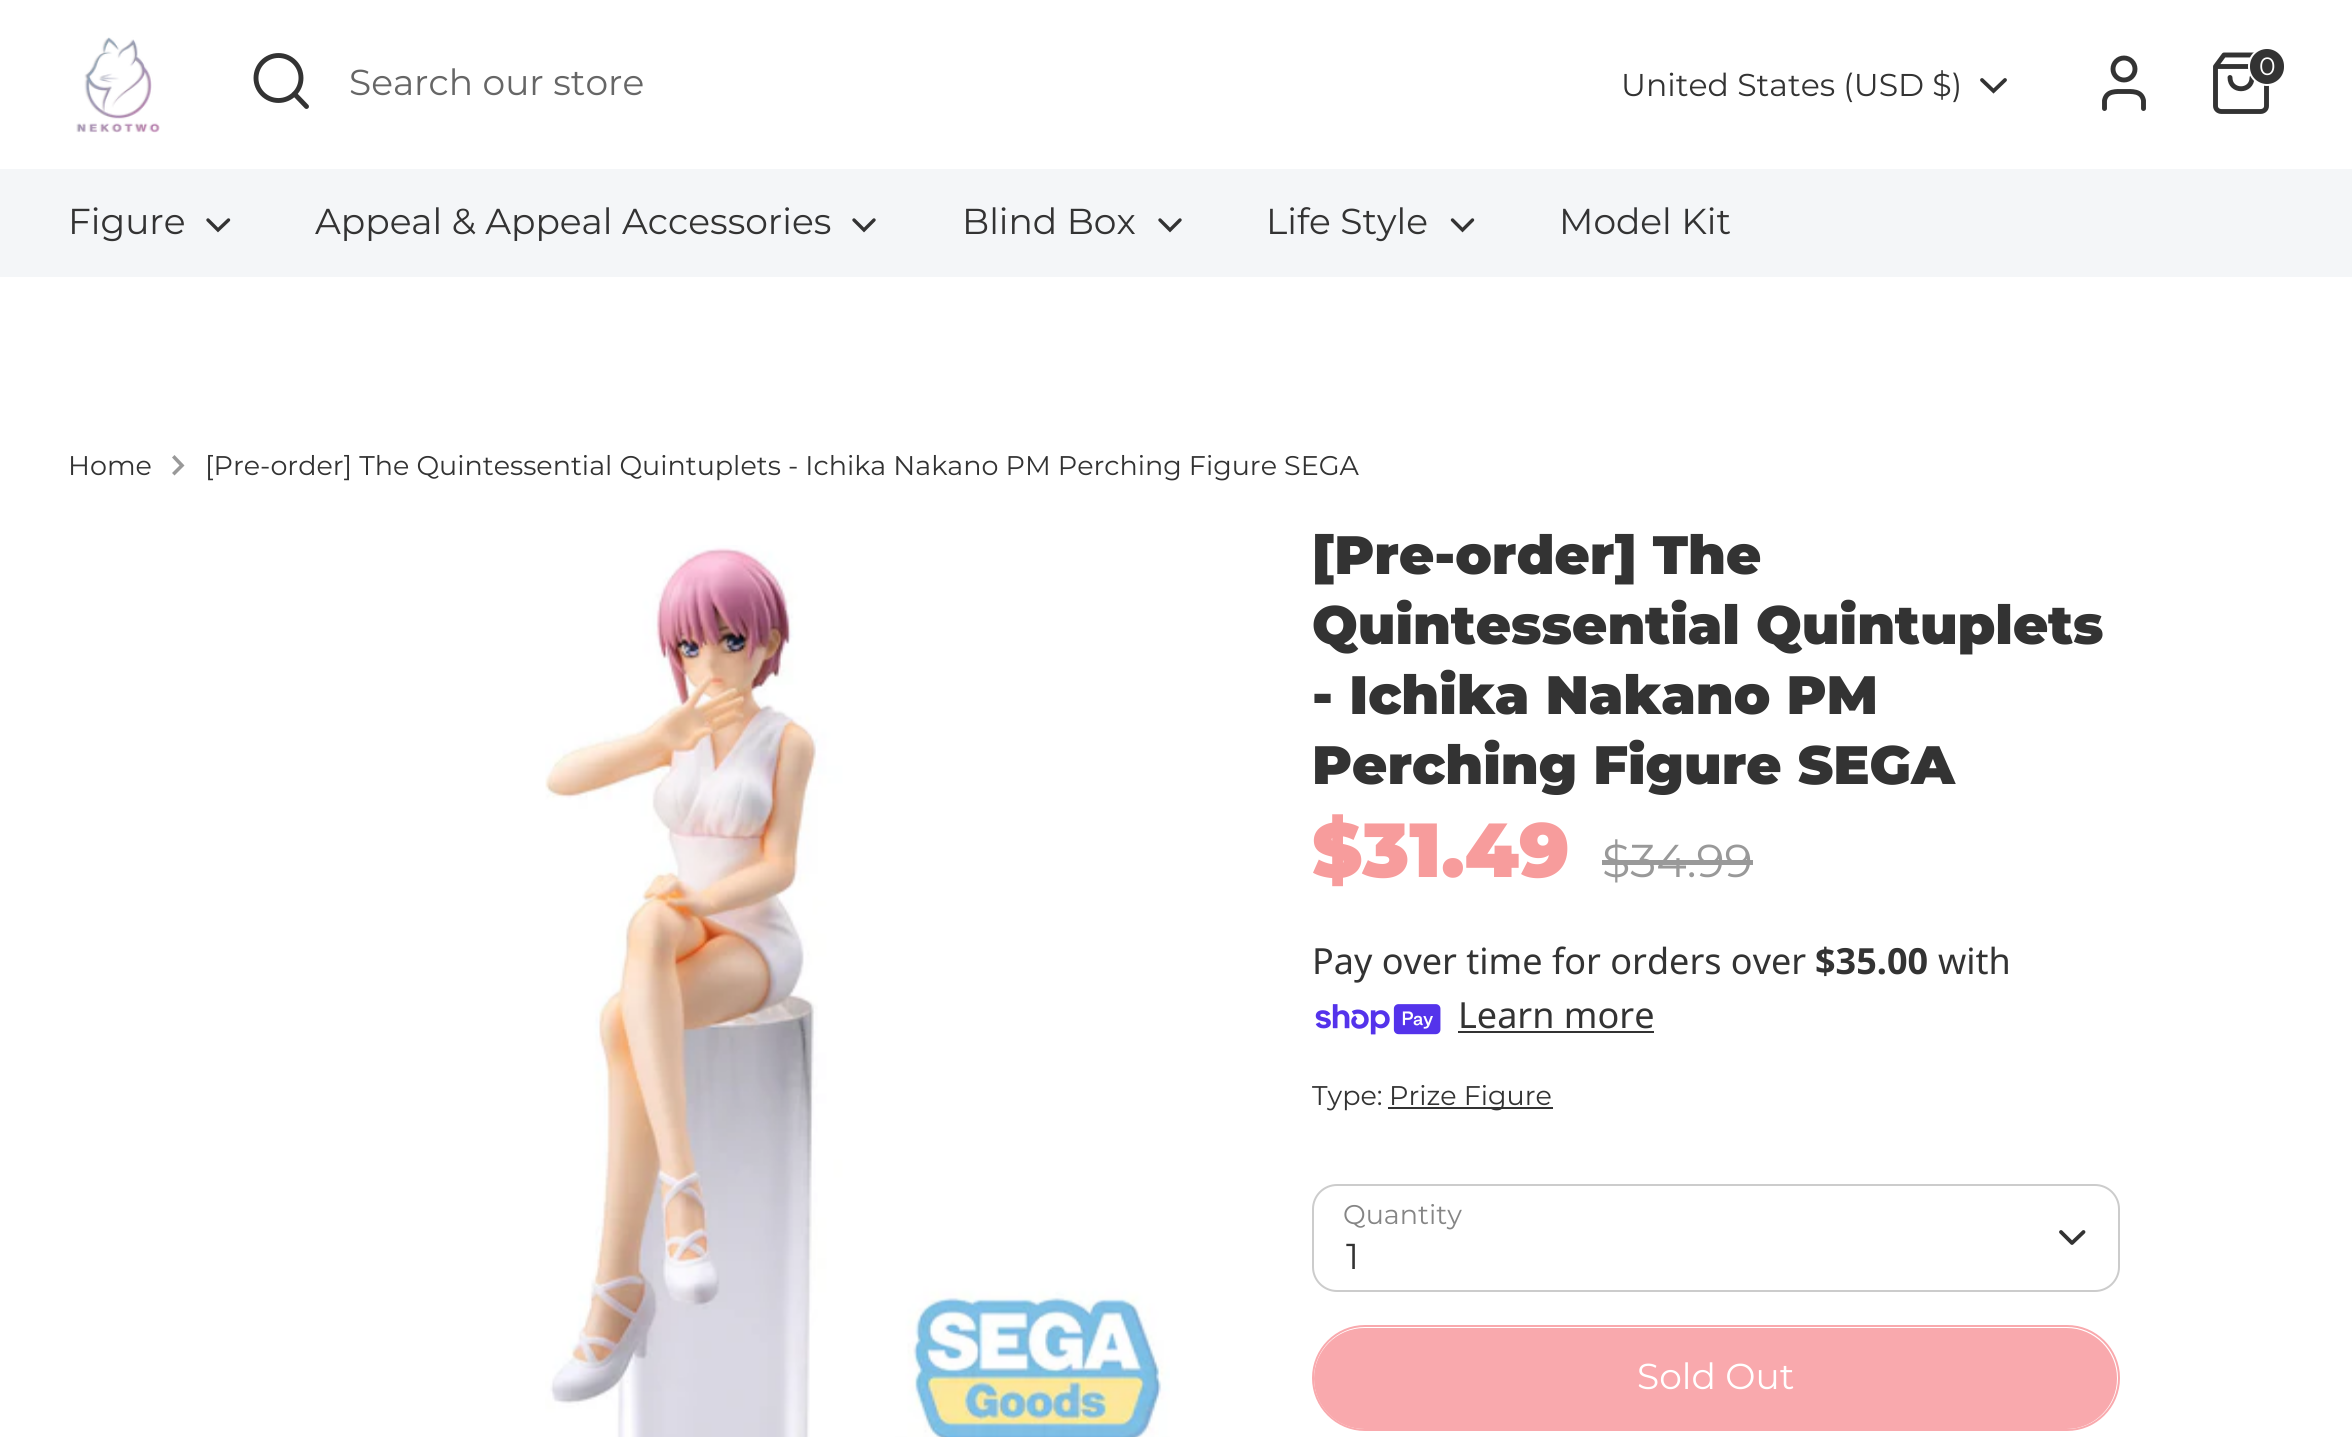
#include <cairo.h>
#include <math.h>
#include <stddef.h>

typedef struct { double x, y; const char *s; } line_t;

static void ink(cairo_t *ctx, unsigned color) {
    cairo_set_source_rgb(ctx, (color >> 16) / 255.0, (color >> 8 & 255) / 255.0, (color & 255) / 255.0);
}

static void round_path(cairo_t *ctx, double x, double y, double w, double h, double r) {
    cairo_new_sub_path(ctx);
    cairo_arc(ctx, x + w - r, y + h - r, r, 0, M_PI / 2);
    cairo_arc(ctx, x + r, y + h - r, r, M_PI / 2, M_PI);
    cairo_arc(ctx, x + r, y + r, r, M_PI, 1.5 * M_PI);
    cairo_arc(ctx, x + w - r, y + r, r, 1.5 * M_PI, 2 * M_PI);
    cairo_close_path(ctx);
}

static void paste(cairo_t *ctx, const char *path, double x, double y, double w, double h) {
    cairo_surface_t *image = cairo_image_surface_create_from_png(path);
    cairo_save(ctx);
    cairo_set_source_surface(ctx, image, x, y);
    cairo_rectangle(ctx, x, y, w, h);
    cairo_fill(ctx);
    cairo_restore(ctx);
    cairo_surface_destroy(image);
}

int main(void) {
    cairo_surface_t *surface = cairo_image_surface_create(CAIRO_FORMAT_RGB24, 2352, 1437);
    cairo_t *ctx = cairo_create(surface);
    cairo_font_options_t *options = cairo_font_options_create();
    cairo_font_options_set_hint_metrics(options, CAIRO_HINT_METRICS_OFF);
    cairo_font_options_set_hint_style(options, CAIRO_HINT_STYLE_NONE);
    cairo_set_font_options(ctx, options);
    cairo_set_miter_limit(ctx, 4);
    ink(ctx, 0xFFFFFF);
    cairo_paint(ctx);
    paste(ctx, "media/1.png", 76, 37, 84, 96);
    cairo_arc(ctx, 278.5, 78, 22.5, 0, 2 * M_PI);
    ink(ctx, 0x333333);
    cairo_set_line_width(ctx, 4.9);
    cairo_stroke(ctx);
    cairo_new_path(ctx);
    cairo_move_to(ctx, 306.5, 106.5);
    cairo_line_to(ctx, 294.5, 94);
    cairo_set_line_cap(ctx, CAIRO_LINE_CAP_ROUND);
    cairo_set_line_join(ctx, CAIRO_LINE_JOIN_ROUND);
    cairo_stroke(ctx);
    cairo_select_font_face(ctx, "Montserrat", CAIRO_FONT_SLANT_NORMAL, CAIRO_FONT_WEIGHT_NORMAL);
    cairo_set_font_size(ctx, 36);
    ink(ctx, 0x666666);
    cairo_move_to(ctx, 349, 95);
    cairo_show_text(ctx, "Search our store");
    cairo_new_path(ctx);
    cairo_move_to(ctx, 2143.5, 108.5);
    cairo_line_to(ctx, 2143.5, 100.5);
    cairo_curve_to(ctx, 2141.5, 90.5, 2132, 91.5, 2124, 91.5);
    cairo_curve_to(ctx, 2116, 91.5, 2106.5, 90.5, 2104.5, 100.5);
    cairo_line_to(ctx, 2104.5, 108.5);
    ink(ctx, 0x333333);
    cairo_stroke(ctx);
    cairo_arc(ctx, 2124, 69, 11, 0, 2 * M_PI);
    cairo_set_line_cap(ctx, CAIRO_LINE_CAP_BUTT);
    cairo_set_line_join(ctx, CAIRO_LINE_JOIN_MITER);
    cairo_stroke(ctx);
    cairo_new_path(ctx);
    cairo_move_to(ctx, 2224, 55);
    cairo_line_to(ctx, 2215.5, 66.5);
    cairo_line_to(ctx, 2215.5, 106);
    cairo_curve_to(ctx, 2215.5, 109, 2218, 111.5, 2221.5, 111.5);
    cairo_line_to(ctx, 2260.5, 111.5);
    cairo_curve_to(ctx, 2264, 111.5, 2266.5, 109, 2266.5, 106);
    cairo_line_to(ctx, 2266.5, 66.5);
    cairo_line_to(ctx, 2258, 55);
    cairo_close_path(ctx);
    cairo_move_to(ctx, 2215.5, 66.5);
    cairo_line_to(ctx, 2266.5, 66.5);
    cairo_move_to(ctx, 2252, 77.5);
    cairo_curve_to(ctx, 2252, 92.5, 2230, 92.5, 2230, 77.5);
    cairo_set_line_cap(ctx, CAIRO_LINE_CAP_ROUND);
    cairo_set_line_join(ctx, CAIRO_LINE_JOIN_ROUND);
    cairo_stroke(ctx);
    round_path(ctx, 2249, 48, 36, 37, 18);
    cairo_fill_preserve(ctx);
    ink(ctx, 0xFFFFFF);
    cairo_set_line_width(ctx, 2);
    cairo_set_line_cap(ctx, CAIRO_LINE_CAP_BUTT);
    cairo_set_line_join(ctx, CAIRO_LINE_JOIN_MITER);
    cairo_stroke(ctx);
    cairo_set_font_size(ctx, 25);
    cairo_move_to(ctx, 2259, 75);
    cairo_show_text(ctx, "0");
    cairo_set_font_size(ctx, 31.5);
    ink(ctx, 0x333333);
    cairo_move_to(ctx, 1621, 96);
    cairo_show_text(ctx, "United States (USD $)");
    cairo_new_path(ctx);
    cairo_move_to(ctx, 1982, 80);
    cairo_line_to(ctx, 1993.5, 91);
    cairo_line_to(ctx, 2005, 80);
    cairo_set_line_width(ctx, 3.8);
    cairo_set_line_cap(ctx, CAIRO_LINE_CAP_ROUND);
    cairo_stroke(ctx);
    ink(ctx, 0xF4F6F8);
    cairo_rectangle(ctx, 0, 169, 2352, 108);
    cairo_fill(ctx);
    cairo_set_font_size(ctx, 36);
    ink(ctx, 0x333333);
    cairo_move_to(ctx, 68, 234);
    cairo_show_text(ctx, "Figure");
    cairo_new_path(ctx);
    cairo_move_to(ctx, 208, 220);
    cairo_line_to(ctx, 218, 230);
    cairo_line_to(ctx, 228.5, 220);
    cairo_set_line_width(ctx, 3.4);
    cairo_stroke(ctx);
    cairo_move_to(ctx, 315, 234);
    cairo_show_text(ctx, "Appeal & Appeal Accessories");
    cairo_new_path(ctx);
    cairo_move_to(ctx, 854, 220);
    cairo_line_to(ctx, 864, 230);
    cairo_line_to(ctx, 874, 220);
    cairo_stroke(ctx);
    cairo_move_to(ctx, 962, 234);
    cairo_show_text(ctx, "Blind Box");
    cairo_new_path(ctx);
    cairo_move_to(ctx, 1160, 220);
    cairo_line_to(ctx, 1170, 230);
    cairo_line_to(ctx, 1180, 220);
    cairo_stroke(ctx);
    cairo_move_to(ctx, 1266, 234);
    cairo_show_text(ctx, "Life Style");
    cairo_new_path(ctx);
    cairo_move_to(ctx, 1452.5, 220);
    cairo_line_to(ctx, 1462.5, 230);
    cairo_line_to(ctx, 1472.5, 220);
    cairo_stroke(ctx);
    cairo_move_to(ctx, 1559, 234);
    cairo_show_text(ctx, "Model Kit");
    cairo_set_font_size(ctx, 27);
    cairo_move_to(ctx, 68, 475);
    cairo_show_text(ctx, "Home");
    ink(ctx, 0x999999);
    cairo_new_path(ctx);
    cairo_move_to(ctx, 172, 473);
    cairo_line_to(ctx, 179.5, 465.5);
    cairo_line_to(ctx, 172, 457.5);
    cairo_line_to(ctx, 174.5, 455);
    cairo_line_to(ctx, 184.5, 465.5);
    cairo_line_to(ctx, 174.5, 475.5);
    cairo_close_path(ctx);
    cairo_fill(ctx);
    ink(ctx, 0x333333);
    cairo_move_to(ctx, 205, 475);
    cairo_show_text(ctx, "[Pre-order] The Quintessential Quintuplets - Ichika Nakano PM Perching Figure SEGA");
    paste(ctx, "media/2.png", 545, 545, 625, 892);
    cairo_select_font_face(ctx, "Montserrat Black", CAIRO_FONT_SLANT_NORMAL, CAIRO_FONT_WEIGHT_NORMAL);
    cairo_set_font_size(ctx, 54);
    {
        static const line_t items[] = {
            {1312, 574, "[Pre-order] The"},
            {1312, 644, "Quintessential Quintuplets"},
            {1312, 714, "- Ichika Nakano PM"},
            {1312, 784, "Perching Figure SEGA"},
        };
        for (size_t i = 0; i < sizeof items / sizeof *items; i++) {
            cairo_move_to(ctx, items[i].x, items[i].y);
            cairo_show_text(ctx, items[i].s);
        }
    }
    cairo_set_font_size(ctx, 76.5);
    ink(ctx, 0xF79C9C);
    cairo_move_to(ctx, 1312, 877);
    cairo_show_text(ctx, "$31.49");
    cairo_select_font_face(ctx, "Montserrat", CAIRO_FONT_SLANT_NORMAL, CAIRO_FONT_WEIGHT_NORMAL);
    cairo_set_font_size(ctx, 46);
    ink(ctx, 0x999999);
    cairo_move_to(ctx, 1602, 877);
    cairo_show_text(ctx, "$34.99");
    cairo_rectangle(ctx, 1602, 860, 151, 5);
    cairo_fill(ctx);
    cairo_select_font_face(ctx, "Noto Sans", CAIRO_FONT_SLANT_NORMAL, CAIRO_FONT_WEIGHT_NORMAL);
    cairo_set_font_size(ctx, 36);
    ink(ctx, 0x333333);
    cairo_move_to(ctx, 1312, 974);
    cairo_show_text(ctx, "Pay over time for orders over");
    cairo_select_font_face(ctx, "Noto Sans", CAIRO_FONT_SLANT_NORMAL, CAIRO_FONT_WEIGHT_BOLD);
    cairo_move_to(ctx, 1815, 974);
    cairo_show_text(ctx, "$35.00");
    cairo_select_font_face(ctx, "Noto Sans", CAIRO_FONT_SLANT_NORMAL, CAIRO_FONT_WEIGHT_NORMAL);
    cairo_move_to(ctx, 1938, 974);
    cairo_show_text(ctx, "with");
    paste(ctx, "media/3.png", 1315, 1004, 126, 31);
    cairo_move_to(ctx, 1458, 1028);
    cairo_show_text(ctx, "Learn more");
    cairo_rectangle(ctx, 1458, 1031, 196, 2);
    cairo_fill(ctx);
    cairo_select_font_face(ctx, "Montserrat", CAIRO_FONT_SLANT_NORMAL, CAIRO_FONT_WEIGHT_NORMAL);
    cairo_set_font_size(ctx, 27);
    cairo_move_to(ctx, 1312, 1105);
    cairo_show_text(ctx, "Type:");
    cairo_rectangle(ctx, 1388, 1107, 165, 2);
    cairo_fill(ctx);
    cairo_move_to(ctx, 1389, 1105);
    cairo_show_text(ctx, "Prize Figure");
    ink(ctx, 0x858585);
    cairo_move_to(ctx, 1343, 1224);
    cairo_show_text(ctx, "Quantity");
    round_path(ctx, 1313, 1185, 806, 106, 24);
    ink(ctx, 0xCCCCCC);
    cairo_set_line_width(ctx, 2);
    cairo_set_line_cap(ctx, CAIRO_LINE_CAP_BUTT);
    cairo_stroke(ctx);
    cairo_new_path(ctx);
    cairo_move_to(ctx, 2061, 1232);
    cairo_line_to(ctx, 2072, 1243);
    cairo_line_to(ctx, 2083.5, 1232);
    ink(ctx, 0x333333);
    cairo_set_line_width(ctx, 3.8);
    cairo_set_line_cap(ctx, CAIRO_LINE_CAP_ROUND);
    cairo_set_line_join(ctx, CAIRO_LINE_JOIN_ROUND);
    cairo_stroke(ctx);
    cairo_set_font_size(ctx, 36);
    cairo_move_to(ctx, 1346, 1269);
    cairo_show_text(ctx, "1");
    round_path(ctx, 1313, 1326, 806, 104, 52);
    ink(ctx, 0xF9A9AD);
    cairo_set_line_width(ctx, 2);
    cairo_set_line_cap(ctx, CAIRO_LINE_CAP_BUTT);
    cairo_set_line_join(ctx, CAIRO_LINE_JOIN_MITER);
    cairo_stroke(ctx);
    round_path(ctx, 1314, 1328, 803, 101, 50.5);
    cairo_fill(ctx);
    ink(ctx, 0xFFFFFF);
    cairo_move_to(ctx, 1637, 1389);
    cairo_show_text(ctx, "Sold Out");
    cairo_surface_write_to_png(surface, "image.png");
    cairo_font_options_destroy(options);
    cairo_destroy(ctx);
    cairo_surface_destroy(surface);
    return 0;
}
